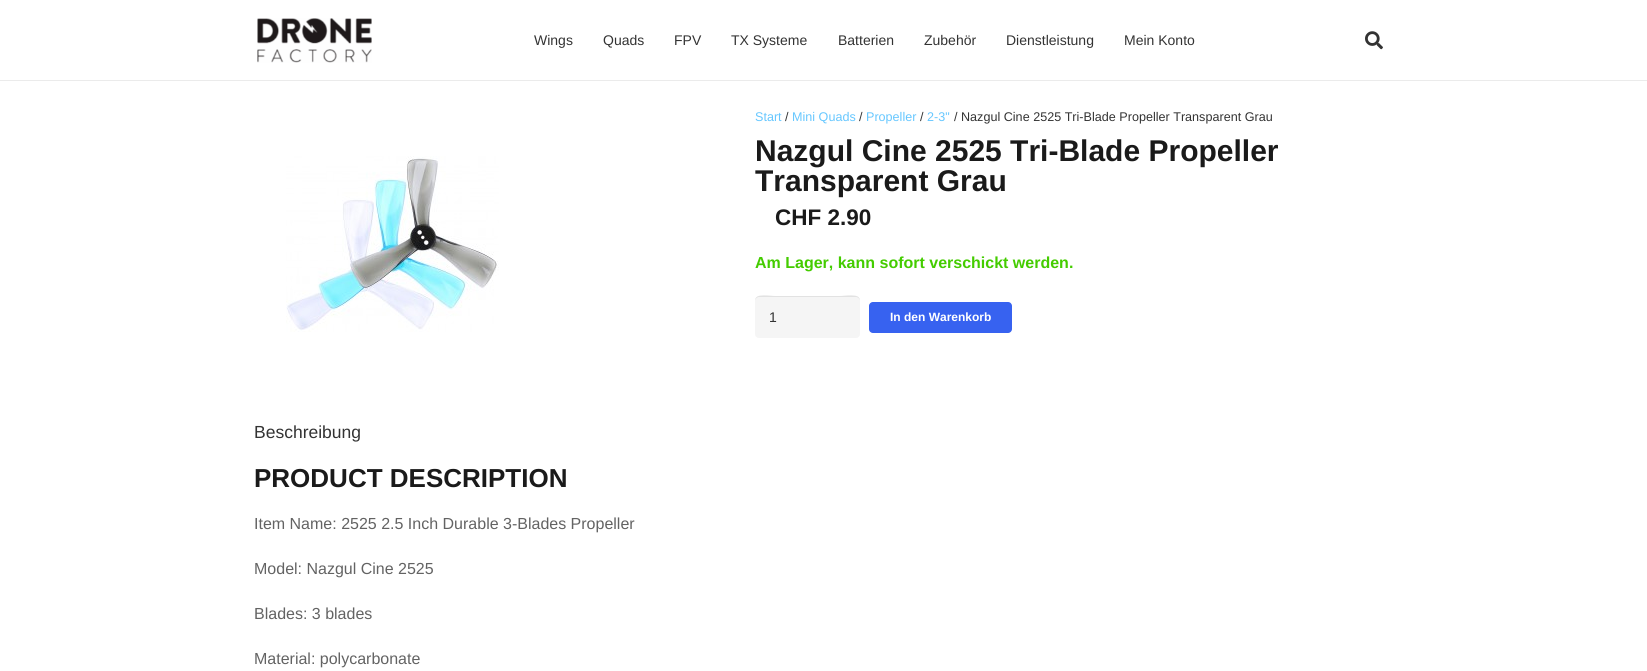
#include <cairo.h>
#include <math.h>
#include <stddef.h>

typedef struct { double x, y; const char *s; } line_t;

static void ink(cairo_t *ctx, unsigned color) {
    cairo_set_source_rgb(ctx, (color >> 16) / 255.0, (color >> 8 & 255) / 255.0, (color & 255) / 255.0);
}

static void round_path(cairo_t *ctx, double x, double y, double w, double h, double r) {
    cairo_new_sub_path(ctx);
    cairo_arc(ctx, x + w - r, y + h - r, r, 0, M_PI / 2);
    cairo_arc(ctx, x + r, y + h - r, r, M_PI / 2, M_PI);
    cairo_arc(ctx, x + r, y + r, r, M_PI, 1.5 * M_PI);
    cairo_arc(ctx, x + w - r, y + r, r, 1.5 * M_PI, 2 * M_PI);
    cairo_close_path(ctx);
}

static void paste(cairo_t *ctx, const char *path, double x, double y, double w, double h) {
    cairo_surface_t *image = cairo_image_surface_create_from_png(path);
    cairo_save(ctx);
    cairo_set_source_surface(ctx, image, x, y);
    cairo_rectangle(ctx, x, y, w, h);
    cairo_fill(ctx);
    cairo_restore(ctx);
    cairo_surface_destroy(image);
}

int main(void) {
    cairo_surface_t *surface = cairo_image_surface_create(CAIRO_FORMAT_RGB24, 1647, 671);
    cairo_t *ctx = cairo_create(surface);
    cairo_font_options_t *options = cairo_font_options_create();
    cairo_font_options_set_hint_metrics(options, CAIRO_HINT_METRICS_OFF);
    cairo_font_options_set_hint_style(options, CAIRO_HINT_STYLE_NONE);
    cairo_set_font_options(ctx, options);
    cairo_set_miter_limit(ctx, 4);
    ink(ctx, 0xFFFFFF);
    cairo_paint(ctx);
    ink(ctx, 0xEBEBEB);
    cairo_rectangle(ctx, 0, 80, 1647, 1);
    cairo_fill(ctx);
    paste(ctx, "media/1.png", 257, 18, 115, 45);
    cairo_select_font_face(ctx, "Liberation Sans", CAIRO_FONT_SLANT_NORMAL, CAIRO_FONT_WEIGHT_NORMAL);
    cairo_set_font_size(ctx, 14);
    ink(ctx, 0x333333);
    {
        static const line_t items[] = {
            {534, 45, "Wings"},
            {603, 45, "Quads"},
            {674, 45, "FPV"},
            {731, 45, "TX Systeme"},
            {838, 45, "Batterien"},
            {924, 45, "Zubehör"},
            {1006, 45, "Dienstleistung"},
            {1124, 45, "Mein Konto"},
        };
        for (size_t i = 0; i < sizeof items / sizeof *items; i++) {
            cairo_move_to(ctx, items[i].x, items[i].y);
            cairo_show_text(ctx, items[i].s);
        }
    }
    paste(ctx, "media/2.png", 1365, 31, 18, 19);
    paste(ctx, "media/3.png", 286, 156, 213, 176);
    cairo_set_font_size(ctx, 12.6);
    ink(ctx, 0x66C7FF);
    cairo_move_to(ctx, 755, 121);
    cairo_show_text(ctx, "Start");
    ink(ctx, 0x333333);
    cairo_move_to(ctx, 785, 121);
    cairo_show_text(ctx, "/");
    ink(ctx, 0x66C7FF);
    cairo_move_to(ctx, 792, 121);
    cairo_show_text(ctx, "Mini Quads");
    ink(ctx, 0x333333);
    cairo_move_to(ctx, 859, 121);
    cairo_show_text(ctx, "/");
    ink(ctx, 0x66C7FF);
    cairo_move_to(ctx, 866, 121);
    cairo_show_text(ctx, "Propeller");
    ink(ctx, 0x333333);
    cairo_move_to(ctx, 920, 121);
    cairo_show_text(ctx, "/");
    ink(ctx, 0x66C7FF);
    cairo_move_to(ctx, 927, 121);
    cairo_show_text(ctx, "2-3\"");
    ink(ctx, 0x333333);
    cairo_move_to(ctx, 954, 121);
    cairo_show_text(ctx, "/ Nazgul Cine 2525 Tri-Blade Propeller Transparent Grau");
    cairo_select_font_face(ctx, "Liberation Sans", CAIRO_FONT_SLANT_NORMAL, CAIRO_FONT_WEIGHT_BOLD);
    cairo_set_font_size(ctx, 30);
    ink(ctx, 0x1A1A1A);
    cairo_move_to(ctx, 755, 161);
    cairo_show_text(ctx, "Nazgul Cine 2525 Tri-Blade Propeller");
    cairo_move_to(ctx, 755, 191);
    cairo_show_text(ctx, "Transparent Grau");
    cairo_set_font_size(ctx, 22.5);
    cairo_move_to(ctx, 775, 225);
    cairo_show_text(ctx, "CHF 2.90");
    cairo_set_font_size(ctx, 16);
    ink(ctx, 0x44CC00);
    cairo_move_to(ctx, 755, 268);
    cairo_show_text(ctx, "Am Lager, kann sofort verschickt werden.");
    ink(ctx, 0xF5F5F5);
    round_path(ctx, 755, 296, 105, 42, 4);
    cairo_fill(ctx);
    cairo_set_source_rgba(ctx, 0, 0, 0, 0.08);
    cairo_new_path(ctx);
    cairo_move_to(ctx, 759, 297);
    cairo_line_to(ctx, 856, 297);
    cairo_curve_to(ctx, 858, 297, 860, 299, 860, 301);
    cairo_curve_to(ctx, 860, 292, 844, 296, 840, 296);
    cairo_line_to(ctx, 775, 296);
    cairo_curve_to(ctx, 771, 296, 755, 292, 755, 301);
    cairo_curve_to(ctx, 755, 299, 757, 297, 759, 297);
    cairo_close_path(ctx);
    cairo_fill(ctx);
    cairo_select_font_face(ctx, "Liberation Sans", CAIRO_FONT_SLANT_NORMAL, CAIRO_FONT_WEIGHT_NORMAL);
    cairo_set_font_size(ctx, 14);
    ink(ctx, 0x333333);
    cairo_move_to(ctx, 769, 322);
    cairo_show_text(ctx, "1");
    ink(ctx, 0x3762F0);
    round_path(ctx, 869, 302, 143, 31, 4);
    cairo_fill(ctx);
    cairo_select_font_face(ctx, "Liberation Sans", CAIRO_FONT_SLANT_NORMAL, CAIRO_FONT_WEIGHT_BOLD);
    cairo_set_font_size(ctx, 12);
    ink(ctx, 0xFFFFFF);
    cairo_move_to(ctx, 890, 321);
    cairo_show_text(ctx, "In den Warenkorb");
    cairo_select_font_face(ctx, "Liberation Sans", CAIRO_FONT_SLANT_NORMAL, CAIRO_FONT_WEIGHT_NORMAL);
    cairo_set_font_size(ctx, 17.5);
    ink(ctx, 0x333333);
    cairo_move_to(ctx, 254, 438);
    cairo_show_text(ctx, "Beschreibung");
    cairo_select_font_face(ctx, "Liberation Sans", CAIRO_FONT_SLANT_NORMAL, CAIRO_FONT_WEIGHT_BOLD);
    cairo_set_font_size(ctx, 26);
    ink(ctx, 0x1A1A1A);
    cairo_move_to(ctx, 254, 487);
    cairo_show_text(ctx, "PRODUCT DESCRIPTION");
    cairo_select_font_face(ctx, "Liberation Sans", CAIRO_FONT_SLANT_NORMAL, CAIRO_FONT_WEIGHT_NORMAL);
    cairo_set_font_size(ctx, 16);
    ink(ctx, 0x636363);
    {
        static const line_t items[] = {
            {254, 529, "Item Name: 2525 2.5 Inch Durable 3-Blades Propeller"},
            {254, 574, "Model: Nazgul Cine 2525"},
            {254, 619, "Blades: 3 blades"},
            {254, 664, "Material: polycarbonate"},
        };
        for (size_t i = 0; i < sizeof items / sizeof *items; i++) {
            cairo_move_to(ctx, items[i].x, items[i].y);
            cairo_show_text(ctx, items[i].s);
        }
    }
    cairo_surface_write_to_png(surface, "image.png");
    cairo_font_options_destroy(options);
    cairo_destroy(ctx);
    cairo_surface_destroy(surface);
    return 0;
}
